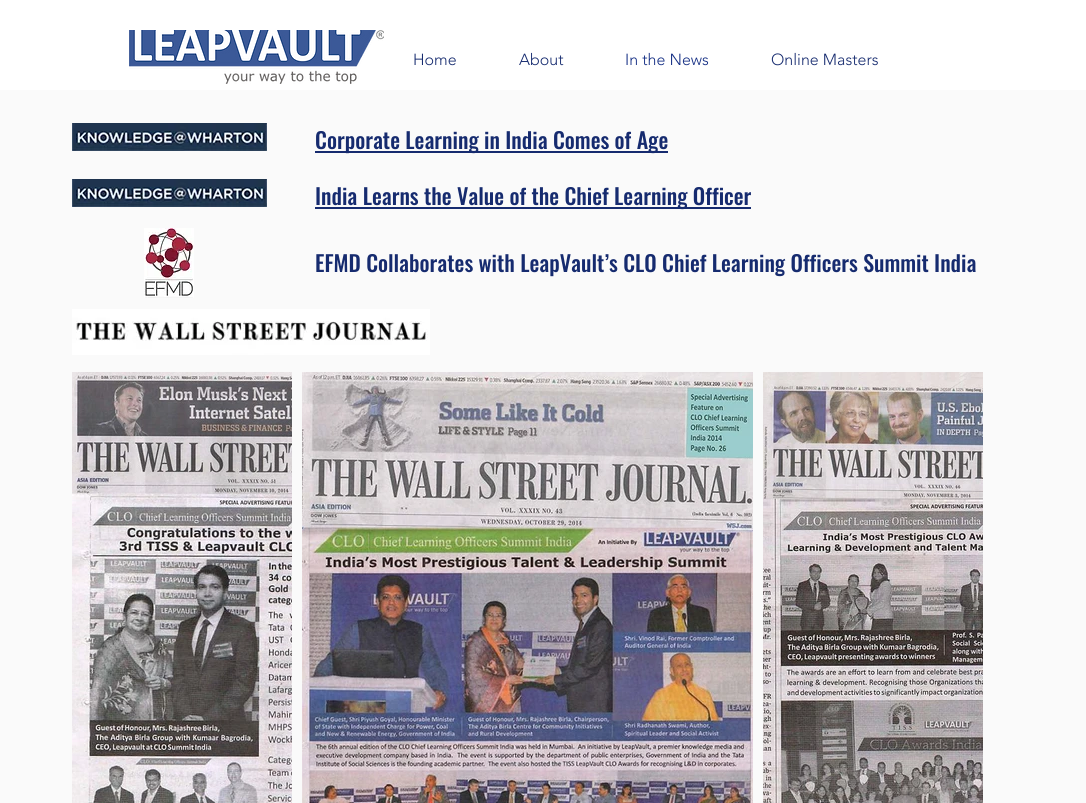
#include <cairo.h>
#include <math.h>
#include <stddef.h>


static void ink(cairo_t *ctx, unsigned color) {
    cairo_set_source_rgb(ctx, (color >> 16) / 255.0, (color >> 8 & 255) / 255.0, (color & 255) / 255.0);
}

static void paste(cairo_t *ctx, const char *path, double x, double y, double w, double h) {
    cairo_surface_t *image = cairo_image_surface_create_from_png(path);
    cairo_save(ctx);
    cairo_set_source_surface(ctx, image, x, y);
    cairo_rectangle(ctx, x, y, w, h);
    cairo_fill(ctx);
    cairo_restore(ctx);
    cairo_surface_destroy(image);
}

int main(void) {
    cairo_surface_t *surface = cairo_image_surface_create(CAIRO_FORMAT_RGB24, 1086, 803);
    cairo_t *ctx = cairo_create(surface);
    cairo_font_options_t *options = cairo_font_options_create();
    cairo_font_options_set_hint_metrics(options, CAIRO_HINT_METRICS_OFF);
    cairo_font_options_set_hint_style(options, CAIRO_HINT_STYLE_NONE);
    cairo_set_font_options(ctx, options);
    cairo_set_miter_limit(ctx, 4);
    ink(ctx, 0xFFFFFF);
    cairo_paint(ctx);
    paste(ctx, "media/1.png", 129, 30, 255, 54);
    cairo_select_font_face(ctx, "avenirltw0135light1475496 Light", CAIRO_FONT_SLANT_NORMAL, CAIRO_FONT_WEIGHT_NORMAL);
    cairo_set_font_size(ctx, 16);
    ink(ctx, 0x162B6F);
    cairo_move_to(ctx, 413, 65);
    cairo_show_text(ctx, "Home");
    cairo_move_to(ctx, 519, 65);
    cairo_show_text(ctx, "About");
    ink(ctx, 0x142E84);
    cairo_move_to(ctx, 625, 65);
    cairo_show_text(ctx, "In the News");
    ink(ctx, 0x162B6F);
    cairo_move_to(ctx, 771, 65);
    cairo_show_text(ctx, "Online Masters");
    ink(ctx, 0xFAFAFA);
    cairo_rectangle(ctx, 0, 90, 1086, 713);
    cairo_fill(ctx);
    paste(ctx, "media/2.png", 72, 123, 195, 28);
    ink(ctx, 0x162B6F);
    cairo_rectangle(ctx, 315, 151, 353, 2);
    cairo_fill(ctx);
    cairo_select_font_face(ctx, "Oswald Medium", CAIRO_FONT_SLANT_NORMAL, CAIRO_FONT_WEIGHT_NORMAL);
    cairo_set_font_size(ctx, 22);
    cairo_move_to(ctx, 315, 149);
    cairo_show_text(ctx, "Corporate Learning in India Comes of Age");
    paste(ctx, "media/2.png", 72, 179, 195, 28);
    cairo_rectangle(ctx, 315, 207, 436, 2);
    cairo_fill(ctx);
    cairo_move_to(ctx, 315, 205);
    cairo_show_text(ctx, "India Learns the Value of the Chief Learning Officer");
    paste(ctx, "media/3.png", 144, 228, 50, 70);
    cairo_move_to(ctx, 315, 272);
    cairo_show_text(ctx, "EFMD Collaborates with LeapVault’s CLO Chief Learning Officers Summit India");
    paste(ctx, "media/4.png", 72, 309, 358, 46);
    paste(ctx, "media/5.png", 72, 372, 220, 431);
    paste(ctx, "media/6.png", 302, 372, 451, 431);
    paste(ctx, "media/7.png", 763, 372, 220, 431);
    cairo_surface_write_to_png(surface, "image.png");
    cairo_font_options_destroy(options);
    cairo_destroy(ctx);
    cairo_surface_destroy(surface);
    return 0;
}
